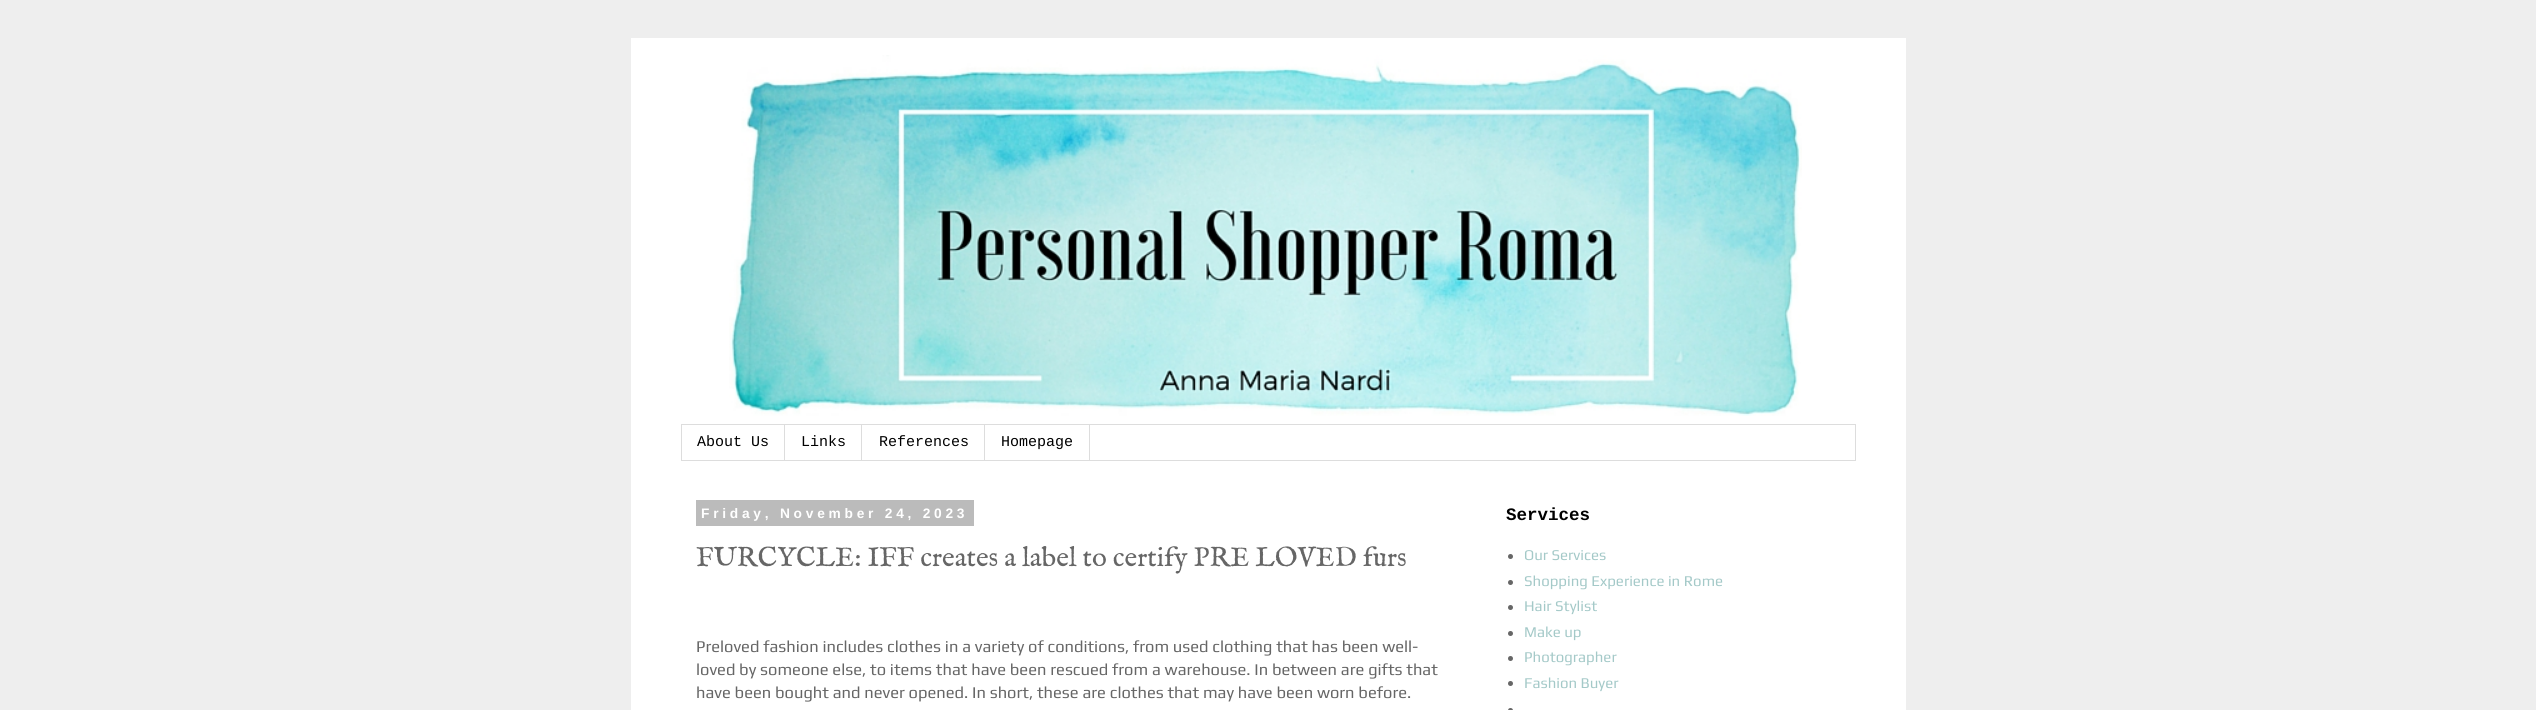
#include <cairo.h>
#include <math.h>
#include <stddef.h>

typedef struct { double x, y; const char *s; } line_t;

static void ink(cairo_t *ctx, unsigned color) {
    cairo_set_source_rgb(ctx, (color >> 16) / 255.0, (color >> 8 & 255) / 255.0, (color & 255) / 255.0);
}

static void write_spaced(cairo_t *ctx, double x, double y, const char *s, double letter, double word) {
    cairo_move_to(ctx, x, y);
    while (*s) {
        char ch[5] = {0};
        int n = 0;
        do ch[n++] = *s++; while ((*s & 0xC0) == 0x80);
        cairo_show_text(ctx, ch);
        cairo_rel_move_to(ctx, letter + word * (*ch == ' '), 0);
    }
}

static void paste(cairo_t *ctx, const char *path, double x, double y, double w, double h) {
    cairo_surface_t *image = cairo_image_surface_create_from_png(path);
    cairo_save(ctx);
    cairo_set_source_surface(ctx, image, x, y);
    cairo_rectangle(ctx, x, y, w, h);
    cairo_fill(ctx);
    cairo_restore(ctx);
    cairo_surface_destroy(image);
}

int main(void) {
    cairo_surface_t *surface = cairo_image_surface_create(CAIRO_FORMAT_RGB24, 2536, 710);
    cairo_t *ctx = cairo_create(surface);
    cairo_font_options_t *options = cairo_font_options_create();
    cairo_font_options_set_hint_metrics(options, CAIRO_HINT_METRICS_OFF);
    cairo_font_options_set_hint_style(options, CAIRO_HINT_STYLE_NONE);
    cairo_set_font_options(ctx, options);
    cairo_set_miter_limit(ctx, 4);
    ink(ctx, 0xEEEEEE);
    cairo_paint(ctx);
    ink(ctx, 0xFFFFFF);
    cairo_rectangle(ctx, 631, 38, 1275, 672);
    cairo_fill(ctx);
    paste(ctx, "media/1.png", 729, 55, 1073, 361);
    cairo_rectangle(ctx, 681.5, 424.5, 1174, 36);
    ink(ctx, 0xDDDDDD);
    cairo_set_line_width(ctx, 1);
    cairo_stroke(ctx);
    cairo_rectangle(ctx, 784, 425, 1, 35);
    cairo_fill(ctx);
    cairo_select_font_face(ctx, "Liberation Mono", CAIRO_FONT_SLANT_NORMAL, CAIRO_FONT_WEIGHT_NORMAL);
    cairo_set_font_size(ctx, 15);
    ink(ctx, 0x000000);
    cairo_move_to(ctx, 697, 446);
    cairo_show_text(ctx, "About Us");
    ink(ctx, 0xDDDDDD);
    cairo_rectangle(ctx, 861, 425, 1, 35);
    cairo_fill(ctx);
    ink(ctx, 0x000000);
    cairo_move_to(ctx, 801, 446);
    cairo_show_text(ctx, "Links");
    ink(ctx, 0xDDDDDD);
    cairo_rectangle(ctx, 984, 425, 1, 35);
    cairo_fill(ctx);
    ink(ctx, 0x000000);
    cairo_move_to(ctx, 879, 446);
    cairo_show_text(ctx, "References");
    ink(ctx, 0xDDDDDD);
    cairo_rectangle(ctx, 1089, 425, 1, 35);
    cairo_fill(ctx);
    ink(ctx, 0x000000);
    cairo_move_to(ctx, 1001, 446);
    cairo_show_text(ctx, "Homepage");
    ink(ctx, 0xBBBBBB);
    cairo_rectangle(ctx, 696, 500, 278, 26);
    cairo_fill(ctx);
    cairo_select_font_face(ctx, "Liberation Sans", CAIRO_FONT_SLANT_NORMAL, CAIRO_FONT_WEIGHT_BOLD);
    cairo_set_font_size(ctx, 13.75);
    ink(ctx, 0xFFFFFF);
    write_spaced(ctx, 701, 518, "Friday, November 24, 2023", 3.75, 0);
    cairo_select_font_face(ctx, "IM FELL English", CAIRO_FONT_SLANT_NORMAL, CAIRO_FONT_WEIGHT_NORMAL);
    cairo_set_font_size(ctx, 27.5);
    ink(ctx, 0x666666);
    cairo_move_to(ctx, 696, 566);
    cairo_show_text(ctx, "FURCYCLE: IFF creates a label to certify PRE LOVED furs");
    cairo_select_font_face(ctx, "Play", CAIRO_FONT_SLANT_NORMAL, CAIRO_FONT_WEIGHT_NORMAL);
    cairo_set_font_size(ctx, 16.5);
    {
        static const line_t items[] = {
            {696, 652, "Preloved fashion includes clothes in a variety of conditions, from used clothing that has been well-"},
            {696, 675, "loved by someone else, to items that have been rescued from a warehouse. In between are gifts that"},
            {696, 698, "have been bought and never opened. In short, these are clothes that may have been worn before."},
        };
        for (size_t i = 0; i < sizeof items / sizeof *items; i++) {
            cairo_move_to(ctx, items[i].x, items[i].y);
            cairo_show_text(ctx, items[i].s);
        }
    }
    cairo_select_font_face(ctx, "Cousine", CAIRO_FONT_SLANT_NORMAL, CAIRO_FONT_WEIGHT_BOLD);
    cairo_set_font_size(ctx, 17.5);
    ink(ctx, 0x000000);
    cairo_move_to(ctx, 1506, 520);
    cairo_show_text(ctx, "Services");
    ink(ctx, 0x666666);
    cairo_new_path(ctx);
    cairo_arc(ctx, 1510.5, 556.5, 2.5, 0, 2 * M_PI);
    cairo_fill(ctx);
    cairo_select_font_face(ctx, "Play", CAIRO_FONT_SLANT_NORMAL, CAIRO_FONT_WEIGHT_NORMAL);
    cairo_set_font_size(ctx, 15);
    ink(ctx, 0xA4C9C8);
    cairo_move_to(ctx, 1524, 560);
    cairo_show_text(ctx, "Our Services");
    ink(ctx, 0x666666);
    cairo_new_path(ctx);
    cairo_arc(ctx, 1510.5, 582.5, 2.5, 0, 2 * M_PI);
    cairo_fill(ctx);
    ink(ctx, 0xA4C9C8);
    cairo_move_to(ctx, 1524, 586);
    cairo_show_text(ctx, "Shopping Experience in Rome");
    ink(ctx, 0x666666);
    cairo_new_path(ctx);
    cairo_arc(ctx, 1510.5, 607.5, 2.5, 0, 2 * M_PI);
    cairo_fill(ctx);
    ink(ctx, 0xA4C9C8);
    cairo_move_to(ctx, 1524, 611);
    cairo_show_text(ctx, "Hair Stylist");
    ink(ctx, 0x666666);
    cairo_new_path(ctx);
    cairo_arc(ctx, 1510.5, 633.5, 2.5, 0, 2 * M_PI);
    cairo_fill(ctx);
    ink(ctx, 0xA4C9C8);
    cairo_move_to(ctx, 1524, 637);
    cairo_show_text(ctx, "Make up");
    ink(ctx, 0x666666);
    cairo_new_path(ctx);
    cairo_arc(ctx, 1510.5, 658.5, 2.5, 0, 2 * M_PI);
    cairo_fill(ctx);
    ink(ctx, 0xA4C9C8);
    cairo_move_to(ctx, 1524, 662);
    cairo_show_text(ctx, "Photographer");
    ink(ctx, 0x666666);
    cairo_new_path(ctx);
    cairo_arc(ctx, 1510.5, 683.5, 2.5, 0, 2 * M_PI);
    cairo_fill(ctx);
    ink(ctx, 0xA4C9C8);
    cairo_move_to(ctx, 1524, 688);
    cairo_show_text(ctx, "Fashion Buyer");
    ink(ctx, 0x666666);
    cairo_new_path(ctx);
    cairo_arc(ctx, 1510.5, 710.5, 2.5, 0, 2 * M_PI);
    cairo_fill(ctx);
    cairo_surface_write_to_png(surface, "image.png");
    cairo_font_options_destroy(options);
    cairo_destroy(ctx);
    cairo_surface_destroy(surface);
    return 0;
}
